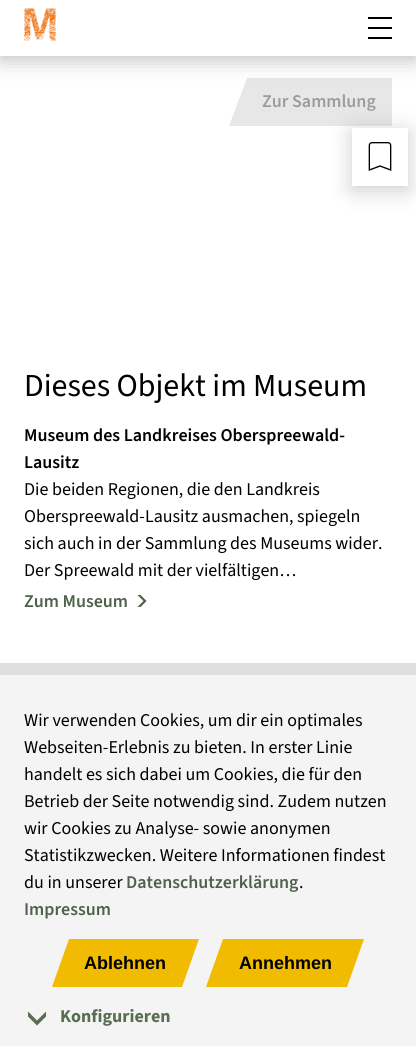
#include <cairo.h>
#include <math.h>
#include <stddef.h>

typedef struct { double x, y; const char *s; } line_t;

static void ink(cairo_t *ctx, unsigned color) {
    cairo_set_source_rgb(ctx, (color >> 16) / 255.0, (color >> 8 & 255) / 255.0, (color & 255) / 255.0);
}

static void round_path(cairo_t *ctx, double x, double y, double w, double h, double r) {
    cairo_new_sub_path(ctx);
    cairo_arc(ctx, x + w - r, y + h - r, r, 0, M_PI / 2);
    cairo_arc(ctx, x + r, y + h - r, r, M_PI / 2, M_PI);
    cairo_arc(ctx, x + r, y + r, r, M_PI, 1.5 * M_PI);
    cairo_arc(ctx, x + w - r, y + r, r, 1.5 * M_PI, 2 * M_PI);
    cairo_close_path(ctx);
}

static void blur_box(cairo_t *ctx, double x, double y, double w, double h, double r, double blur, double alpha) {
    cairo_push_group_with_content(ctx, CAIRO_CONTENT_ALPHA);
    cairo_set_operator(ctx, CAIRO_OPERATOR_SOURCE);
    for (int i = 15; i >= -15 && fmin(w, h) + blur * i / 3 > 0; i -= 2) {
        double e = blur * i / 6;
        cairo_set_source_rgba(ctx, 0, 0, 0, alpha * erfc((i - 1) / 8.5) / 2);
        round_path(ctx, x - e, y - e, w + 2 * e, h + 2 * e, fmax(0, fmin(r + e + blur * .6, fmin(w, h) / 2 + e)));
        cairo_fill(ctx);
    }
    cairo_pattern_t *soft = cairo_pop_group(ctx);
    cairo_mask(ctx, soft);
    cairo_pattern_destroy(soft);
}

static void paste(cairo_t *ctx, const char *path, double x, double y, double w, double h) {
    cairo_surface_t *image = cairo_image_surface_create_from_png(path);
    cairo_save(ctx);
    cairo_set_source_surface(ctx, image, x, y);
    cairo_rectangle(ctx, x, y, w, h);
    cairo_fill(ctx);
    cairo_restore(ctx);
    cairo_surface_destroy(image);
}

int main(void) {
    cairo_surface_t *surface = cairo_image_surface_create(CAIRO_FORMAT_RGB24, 416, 1046);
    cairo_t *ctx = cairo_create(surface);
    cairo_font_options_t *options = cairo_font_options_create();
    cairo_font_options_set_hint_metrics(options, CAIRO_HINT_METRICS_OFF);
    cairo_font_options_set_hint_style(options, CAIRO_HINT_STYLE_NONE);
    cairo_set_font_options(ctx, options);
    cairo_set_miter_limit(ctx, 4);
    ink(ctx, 0xFFFFFF);
    cairo_paint(ctx);
    ink(ctx, 0xE7E7E7);
    cairo_new_path(ctx);
    cairo_move_to(ctx, 247, 78);
    cairo_line_to(ctx, 362, 78);
    cairo_line_to(ctx, 345, 126);
    cairo_line_to(ctx, 229, 126);
    cairo_close_path(ctx);
    cairo_fill(ctx);
    cairo_rectangle(ctx, 345, 78, 47, 48);
    cairo_fill(ctx);
    ink(ctx, 0x000000);
    blur_box(ctx, 0, 3, 416, 57, 0, 10, 0.25);
    ink(ctx, 0xFFFFFF);
    cairo_rectangle(ctx, 0, 0, 416, 56);
    cairo_fill(ctx);
    paste(ctx, "media/1.png", 24, 8, 32, 33);
    cairo_save(ctx);
    cairo_rectangle(ctx, 368, 16, 24, 24);
    cairo_clip(ctx);
    cairo_new_path(ctx);
    cairo_move_to(ctx, 368, 18);
    cairo_line_to(ctx, 392, 18);
    cairo_move_to(ctx, 368, 28);
    cairo_line_to(ctx, 392, 28);
    cairo_move_to(ctx, 368, 38);
    cairo_line_to(ctx, 392, 38);
    ink(ctx, 0x000000);
    cairo_set_line_cap(ctx, CAIRO_LINE_CAP_ROUND);
    cairo_set_line_join(ctx, CAIRO_LINE_JOIN_ROUND);
    cairo_stroke(ctx);
    cairo_restore(ctx);
    cairo_select_font_face(ctx, "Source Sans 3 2 ExtraLight", CAIRO_FONT_SLANT_NORMAL, CAIRO_FONT_WEIGHT_NORMAL);
    cairo_set_font_size(ctx, 18);
    ink(ctx, 0x9C9C9C);
    cairo_move_to(ctx, 262, 107);
    cairo_show_text(ctx, "Zur Sammlung");
    cairo_select_font_face(ctx, "Source Sans 3 ExtraLight", CAIRO_FONT_SLANT_NORMAL, CAIRO_FONT_WEIGHT_NORMAL);
    cairo_set_font_size(ctx, 32);
    ink(ctx, 0x000000);
    cairo_move_to(ctx, 24, 396);
    cairo_show_text(ctx, "Dieses Objekt im Museum");
    cairo_select_font_face(ctx, "Source Sans 3 2 ExtraLight", CAIRO_FONT_SLANT_NORMAL, CAIRO_FONT_WEIGHT_NORMAL);
    cairo_set_font_size(ctx, 18);
    cairo_move_to(ctx, 24, 441);
    cairo_show_text(ctx, "Museum des Landkreises Oberspreewald-");
    cairo_move_to(ctx, 24, 468);
    cairo_show_text(ctx, "Lausitz");
    cairo_select_font_face(ctx, "Source Sans 3 ExtraLight", CAIRO_FONT_SLANT_NORMAL, CAIRO_FONT_WEIGHT_NORMAL);
    {
        static const line_t items[] = {
            {24, 495, "Die beiden Regionen, die den Landkreis"},
            {24, 522, "Oberspreewald-Lausitz ausmachen, spiegeln"},
            {24, 549, "sich auch in der Sammlung des Museums wider."},
            {24, 576, "Der Spreewald mit der vielfältigen…"},
        };
        for (size_t i = 0; i < sizeof items / sizeof *items; i++) {
            cairo_move_to(ctx, items[i].x, items[i].y);
            cairo_show_text(ctx, items[i].s);
        }
    }
    cairo_select_font_face(ctx, "Source Sans 3 2 ExtraLight", CAIRO_FONT_SLANT_NORMAL, CAIRO_FONT_WEIGHT_NORMAL);
    ink(ctx, 0x4F614A);
    cairo_move_to(ctx, 24, 607);
    cairo_show_text(ctx, "Zum Museum");
    paste(ctx, "media/2.png", 137, 595, 10, 12);
    ink(ctx, 0xDEDEDE);
    cairo_rectangle(ctx, 0, 663, 416, 12);
    cairo_fill(ctx);
    cairo_save(ctx);
    cairo_set_fill_rule(ctx, CAIRO_FILL_RULE_EVEN_ODD);
    cairo_new_path(ctx);
    cairo_move_to(ctx, 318, 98);
    cairo_line_to(ctx, 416, 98);
    cairo_line_to(ctx, 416, 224);
    cairo_line_to(ctx, 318, 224);
    cairo_close_path(ctx);
    cairo_move_to(ctx, 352, 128);
    cairo_line_to(ctx, 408, 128);
    cairo_line_to(ctx, 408, 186);
    cairo_line_to(ctx, 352, 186);
    cairo_close_path(ctx);
    cairo_clip(ctx);
    ink(ctx, 0x000000);
    blur_box(ctx, 352, 132, 56, 58, 0, 11, 0.2);
    cairo_restore(ctx);
    paste(ctx, "media/3.png", 368, 142, 24, 29);
    ink(ctx, 0xF4F4F4);
    cairo_rectangle(ctx, 0, 675, 416, 371);
    cairo_fill(ctx);
    cairo_select_font_face(ctx, "Source Sans 3 ExtraLight", CAIRO_FONT_SLANT_NORMAL, CAIRO_FONT_WEIGHT_NORMAL);
    ink(ctx, 0x000000);
    {
        static const line_t items[] = {
            {24, 726, "Wir verwenden Cookies, um dir ein optimales"},
            {24, 753, "Webseiten-Erlebnis zu bieten. In erster Linie"},
            {24, 780, "handelt es sich dabei um Cookies, die für den"},
            {24, 807, "Betrieb der Seite notwendig sind. Zudem nutzen"},
            {24, 834, "wir Cookies zu Analyse- sowie anonymen"},
            {24, 861, "Statistikzwecken. Weitere Informationen findest"},
            {24, 888, "du in unserer"},
        };
        for (size_t i = 0; i < sizeof items / sizeof *items; i++) {
            cairo_move_to(ctx, items[i].x, items[i].y);
            cairo_show_text(ctx, items[i].s);
        }
    }
    cairo_select_font_face(ctx, "Source Sans 3 2 ExtraLight", CAIRO_FONT_SLANT_NORMAL, CAIRO_FONT_WEIGHT_NORMAL);
    ink(ctx, 0x4F614A);
    cairo_move_to(ctx, 126, 888);
    cairo_show_text(ctx, "Datenschutzerklärung");
    cairo_select_font_face(ctx, "Source Sans 3 ExtraLight", CAIRO_FONT_SLANT_NORMAL, CAIRO_FONT_WEIGHT_NORMAL);
    ink(ctx, 0x000000);
    cairo_move_to(ctx, 299, 888);
    cairo_show_text(ctx, ".");
    cairo_select_font_face(ctx, "Source Sans 3 2 ExtraLight", CAIRO_FONT_SLANT_NORMAL, CAIRO_FONT_WEIGHT_NORMAL);
    ink(ctx, 0x4F614A);
    cairo_move_to(ctx, 24, 915);
    cairo_show_text(ctx, "Impressum");
    ink(ctx, 0xF0BB00);
    cairo_new_path(ctx);
    cairo_move_to(ctx, 69, 939);
    cairo_line_to(ctx, 167, 939);
    cairo_line_to(ctx, 149, 987);
    cairo_line_to(ctx, 52, 987);
    cairo_close_path(ctx);
    cairo_fill(ctx);
    cairo_new_path(ctx);
    cairo_move_to(ctx, 102, 939);
    cairo_line_to(ctx, 199, 939);
    cairo_line_to(ctx, 182, 987);
    cairo_line_to(ctx, 84, 987);
    cairo_close_path(ctx);
    cairo_fill(ctx);
    cairo_select_font_face(ctx, "Liberation Sans", CAIRO_FONT_SLANT_NORMAL, CAIRO_FONT_WEIGHT_BOLD);
    ink(ctx, 0x000000);
    cairo_move_to(ctx, 84, 969);
    cairo_show_text(ctx, "Ablehnen");
    ink(ctx, 0xF0BB00);
    cairo_new_path(ctx);
    cairo_move_to(ctx, 223, 939);
    cairo_line_to(ctx, 329, 939);
    cairo_line_to(ctx, 312, 987);
    cairo_line_to(ctx, 206, 987);
    cairo_close_path(ctx);
    cairo_fill(ctx);
    cairo_new_path(ctx);
    cairo_move_to(ctx, 259, 939);
    cairo_line_to(ctx, 364, 939);
    cairo_line_to(ctx, 347, 987);
    cairo_line_to(ctx, 241, 987);
    cairo_close_path(ctx);
    cairo_fill(ctx);
    ink(ctx, 0x000000);
    cairo_move_to(ctx, 239, 969);
    cairo_show_text(ctx, "Annehmen");
    ink(ctx, 0x596D53);
    cairo_new_path(ctx);
    cairo_move_to(ctx, 46, 1016.5);
    cairo_line_to(ctx, 46, 1011.5);
    cairo_line_to(ctx, 37, 1020.5);
    cairo_line_to(ctx, 28, 1011.5);
    cairo_line_to(ctx, 28, 1016.5);
    cairo_line_to(ctx, 37, 1025.5);
    cairo_close_path(ctx);
    cairo_fill(ctx);
    cairo_select_font_face(ctx, "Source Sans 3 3 ExtraLight", CAIRO_FONT_SLANT_NORMAL, CAIRO_FONT_WEIGHT_NORMAL);
    cairo_move_to(ctx, 60, 1022);
    cairo_show_text(ctx, "Konfigurieren");
    cairo_surface_write_to_png(surface, "image.png");
    cairo_font_options_destroy(options);
    cairo_destroy(ctx);
    cairo_surface_destroy(surface);
    return 0;
}
